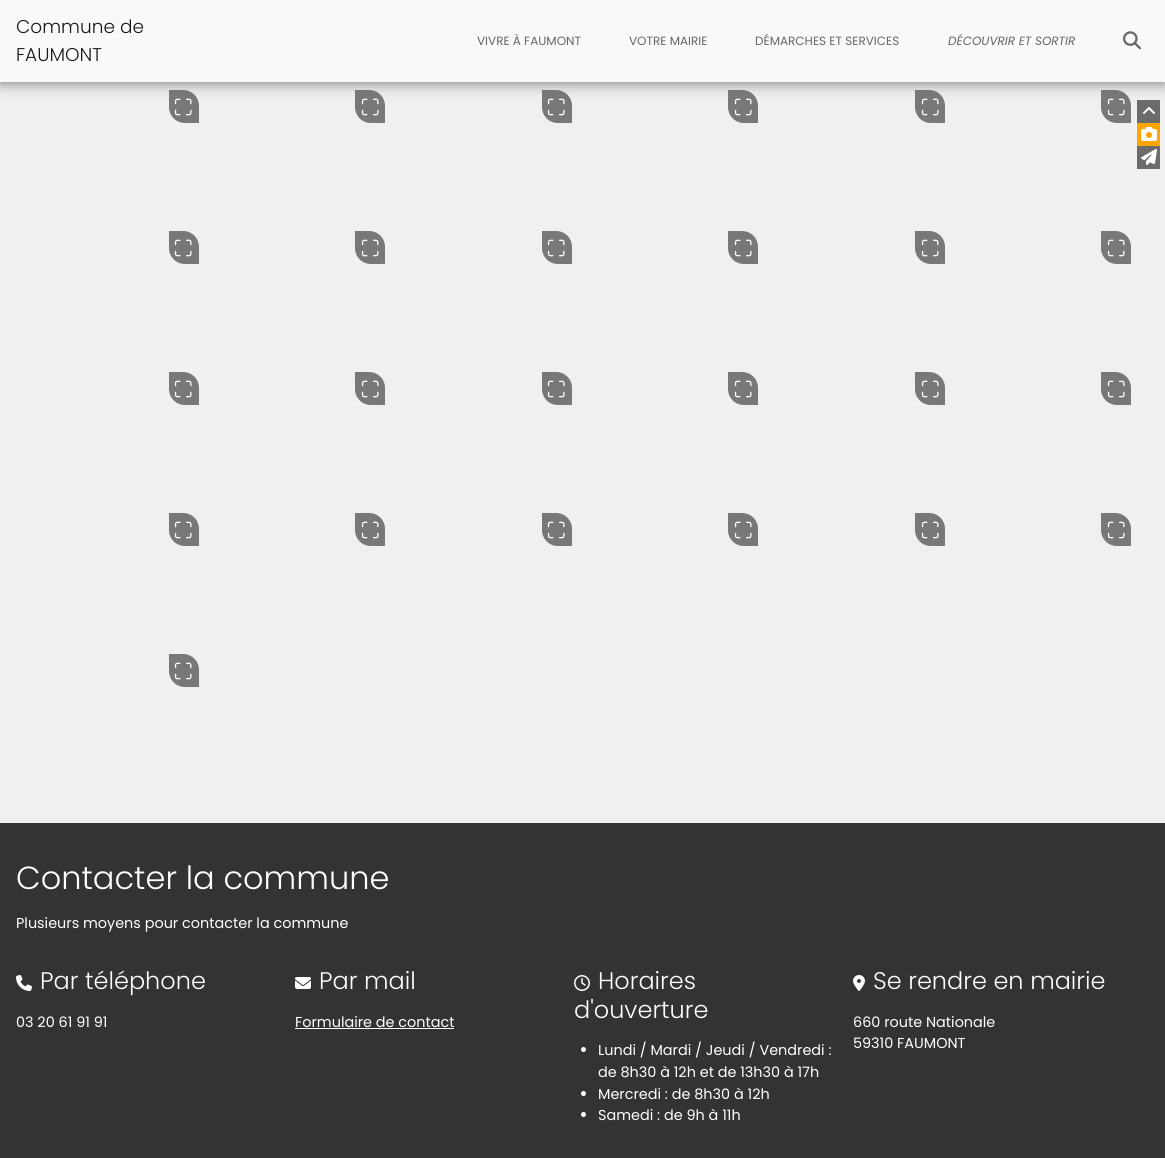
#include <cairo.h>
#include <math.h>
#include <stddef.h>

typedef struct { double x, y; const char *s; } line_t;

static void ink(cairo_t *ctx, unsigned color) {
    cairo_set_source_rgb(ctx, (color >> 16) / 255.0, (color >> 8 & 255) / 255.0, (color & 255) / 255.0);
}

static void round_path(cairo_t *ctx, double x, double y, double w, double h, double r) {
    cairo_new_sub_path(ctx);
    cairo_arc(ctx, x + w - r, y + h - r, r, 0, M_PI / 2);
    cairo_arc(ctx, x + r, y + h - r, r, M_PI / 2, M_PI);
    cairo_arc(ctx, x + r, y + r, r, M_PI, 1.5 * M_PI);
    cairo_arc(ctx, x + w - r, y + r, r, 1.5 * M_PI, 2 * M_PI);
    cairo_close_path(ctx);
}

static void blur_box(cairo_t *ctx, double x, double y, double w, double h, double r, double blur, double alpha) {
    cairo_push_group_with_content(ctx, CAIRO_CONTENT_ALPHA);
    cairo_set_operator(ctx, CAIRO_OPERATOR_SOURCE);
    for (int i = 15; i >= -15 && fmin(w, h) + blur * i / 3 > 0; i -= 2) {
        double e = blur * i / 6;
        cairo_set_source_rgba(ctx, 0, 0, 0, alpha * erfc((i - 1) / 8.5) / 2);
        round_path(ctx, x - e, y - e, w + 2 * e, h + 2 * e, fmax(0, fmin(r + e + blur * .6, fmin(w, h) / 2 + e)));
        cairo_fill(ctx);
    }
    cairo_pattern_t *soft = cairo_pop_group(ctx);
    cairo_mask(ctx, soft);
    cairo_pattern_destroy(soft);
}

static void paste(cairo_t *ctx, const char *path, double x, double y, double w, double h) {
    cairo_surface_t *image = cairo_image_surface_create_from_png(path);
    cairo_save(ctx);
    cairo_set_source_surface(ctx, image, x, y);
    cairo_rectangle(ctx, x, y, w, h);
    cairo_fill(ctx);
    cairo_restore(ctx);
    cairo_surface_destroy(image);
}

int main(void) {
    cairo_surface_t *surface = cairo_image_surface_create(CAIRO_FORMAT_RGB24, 1165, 1158);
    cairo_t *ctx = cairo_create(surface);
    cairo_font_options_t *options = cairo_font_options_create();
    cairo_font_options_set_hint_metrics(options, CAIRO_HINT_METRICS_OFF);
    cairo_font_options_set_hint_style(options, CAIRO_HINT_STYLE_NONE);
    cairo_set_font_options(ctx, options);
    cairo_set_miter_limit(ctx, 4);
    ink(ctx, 0xF0F0F0);
    cairo_paint(ctx);
    ink(ctx, 0x6B6B6B);
    cairo_rectangle(ctx, 1137, 100, 23, 69);
    cairo_fill(ctx);
    ink(ctx, 0x787878);
    cairo_new_path(ctx);
    cairo_move_to(ctx, 169, 90);
    cairo_line_to(ctx, 183, 90);
    cairo_curve_to(ctx, 192, 90, 199, 97, 199, 106);
    cairo_line_to(ctx, 199, 123);
    cairo_line_to(ctx, 185, 123);
    cairo_curve_to(ctx, 176, 123, 169, 116, 169, 107);
    cairo_close_path(ctx);
    cairo_fill(ctx);
    paste(ctx, "media/5.png", 174, 98, 18, 18);
    cairo_new_path(ctx);
    cairo_move_to(ctx, 355, 90);
    cairo_line_to(ctx, 369, 90);
    cairo_curve_to(ctx, 378, 90, 385, 97, 385, 106);
    cairo_line_to(ctx, 385, 123);
    cairo_line_to(ctx, 371, 123);
    cairo_curve_to(ctx, 362, 123, 355, 116, 355, 107);
    cairo_close_path(ctx);
    cairo_fill(ctx);
    paste(ctx, "media/5.png", 361, 98, 18, 18);
    cairo_new_path(ctx);
    cairo_move_to(ctx, 542, 90);
    cairo_line_to(ctx, 556, 90);
    cairo_curve_to(ctx, 565, 90, 572, 97, 572, 106);
    cairo_line_to(ctx, 572, 123);
    cairo_line_to(ctx, 558, 123);
    cairo_curve_to(ctx, 549, 123, 542, 116, 542, 107);
    cairo_close_path(ctx);
    cairo_fill(ctx);
    paste(ctx, "media/5.png", 547, 98, 18, 18);
    cairo_new_path(ctx);
    cairo_move_to(ctx, 728, 90);
    cairo_line_to(ctx, 742, 90);
    cairo_curve_to(ctx, 751, 90, 758, 97, 758, 106);
    cairo_line_to(ctx, 758, 123);
    cairo_line_to(ctx, 744, 123);
    cairo_curve_to(ctx, 735, 123, 728, 116, 728, 107);
    cairo_close_path(ctx);
    cairo_fill(ctx);
    paste(ctx, "media/5.png", 734, 98, 18, 18);
    cairo_new_path(ctx);
    cairo_move_to(ctx, 915, 90);
    cairo_line_to(ctx, 929, 90);
    cairo_curve_to(ctx, 938, 90, 945, 97, 945, 106);
    cairo_line_to(ctx, 945, 123);
    cairo_line_to(ctx, 931, 123);
    cairo_curve_to(ctx, 922, 123, 915, 116, 915, 107);
    cairo_close_path(ctx);
    cairo_fill(ctx);
    paste(ctx, "media/5.png", 921, 98, 18, 18);
    cairo_new_path(ctx);
    cairo_move_to(ctx, 1101, 90);
    cairo_line_to(ctx, 1115, 90);
    cairo_curve_to(ctx, 1124, 90, 1131, 97, 1131, 106);
    cairo_line_to(ctx, 1131, 123);
    cairo_line_to(ctx, 1117, 123);
    cairo_curve_to(ctx, 1108, 123, 1101, 116, 1101, 107);
    cairo_close_path(ctx);
    cairo_fill(ctx);
    paste(ctx, "media/5.png", 1107, 98, 18, 18);
    ink(ctx, 0x666666);
    blur_box(ctx, 0, 0, 1165, 82, 0, 7.5, 1);
    ink(ctx, 0xF8F9FA);
    cairo_rectangle(ctx, 0, 0, 1165, 82);
    cairo_fill(ctx);
    cairo_select_font_face(ctx, "Poppins Light", CAIRO_FONT_SLANT_NORMAL, CAIRO_FONT_WEIGHT_NORMAL);
    cairo_set_font_size(ctx, 18.5);
    ink(ctx, 0x191919);
    cairo_move_to(ctx, 16, 33);
    cairo_show_text(ctx, "Commune de");
    cairo_move_to(ctx, 16, 61);
    cairo_show_text(ctx, "FAUMONT");
    cairo_select_font_face(ctx, "Poppins", CAIRO_FONT_SLANT_NORMAL, CAIRO_FONT_WEIGHT_NORMAL);
    cairo_set_font_size(ctx, 12);
    ink(ctx, 0x666666);
    {
        static const line_t items[] = {
            {477, 45, "VIVRE À FAUMONT"},
            {629, 45, "VOTRE MAIRIE"},
            {755, 45, "DÉMARCHES ET SERVICES"},
        };
        for (size_t i = 0; i < sizeof items / sizeof *items; i++) {
            cairo_move_to(ctx, items[i].x, items[i].y);
            cairo_show_text(ctx, items[i].s);
        }
    }
    cairo_select_font_face(ctx, "Poppins", CAIRO_FONT_SLANT_ITALIC, CAIRO_FONT_WEIGHT_NORMAL);
    cairo_move_to(ctx, 948, 45);
    cairo_show_text(ctx, "DÉCOUVRIR ET SORTIR");
    paste(ctx, "media/1.png", 1123, 31, 18, 19);
    paste(ctx, "media/2.png", 1143, 107, 12, 7);
    ink(ctx, 0xFFA500);
    cairo_rectangle(ctx, 1137, 123, 23, 23);
    cairo_fill(ctx);
    paste(ctx, "media/3.png", 1141, 127, 16, 14);
    paste(ctx, "media/4.png", 1141, 149, 16, 16);
    ink(ctx, 0x787878);
    cairo_new_path(ctx);
    cairo_move_to(ctx, 169, 231);
    cairo_line_to(ctx, 183, 231);
    cairo_curve_to(ctx, 192, 231, 199, 238, 199, 247);
    cairo_line_to(ctx, 199, 264);
    cairo_line_to(ctx, 185, 264);
    cairo_curve_to(ctx, 176, 264, 169, 257, 169, 248);
    cairo_close_path(ctx);
    cairo_fill(ctx);
    paste(ctx, "media/5.png", 174, 239, 18, 18);
    cairo_new_path(ctx);
    cairo_move_to(ctx, 355, 231);
    cairo_line_to(ctx, 369, 231);
    cairo_curve_to(ctx, 378, 231, 385, 238, 385, 247);
    cairo_line_to(ctx, 385, 264);
    cairo_line_to(ctx, 371, 264);
    cairo_curve_to(ctx, 362, 264, 355, 257, 355, 248);
    cairo_close_path(ctx);
    cairo_fill(ctx);
    paste(ctx, "media/5.png", 361, 239, 18, 18);
    cairo_new_path(ctx);
    cairo_move_to(ctx, 542, 231);
    cairo_line_to(ctx, 556, 231);
    cairo_curve_to(ctx, 565, 231, 572, 238, 572, 247);
    cairo_line_to(ctx, 572, 264);
    cairo_line_to(ctx, 558, 264);
    cairo_curve_to(ctx, 549, 264, 542, 257, 542, 248);
    cairo_close_path(ctx);
    cairo_fill(ctx);
    paste(ctx, "media/5.png", 547, 239, 18, 18);
    cairo_new_path(ctx);
    cairo_move_to(ctx, 728, 231);
    cairo_line_to(ctx, 742, 231);
    cairo_curve_to(ctx, 751, 231, 758, 238, 758, 247);
    cairo_line_to(ctx, 758, 264);
    cairo_line_to(ctx, 744, 264);
    cairo_curve_to(ctx, 735, 264, 728, 257, 728, 248);
    cairo_close_path(ctx);
    cairo_fill(ctx);
    paste(ctx, "media/5.png", 734, 239, 18, 18);
    cairo_new_path(ctx);
    cairo_move_to(ctx, 915, 231);
    cairo_line_to(ctx, 929, 231);
    cairo_curve_to(ctx, 938, 231, 945, 238, 945, 247);
    cairo_line_to(ctx, 945, 264);
    cairo_line_to(ctx, 931, 264);
    cairo_curve_to(ctx, 922, 264, 915, 257, 915, 248);
    cairo_close_path(ctx);
    cairo_fill(ctx);
    paste(ctx, "media/5.png", 921, 239, 18, 18);
    cairo_new_path(ctx);
    cairo_move_to(ctx, 1101, 231);
    cairo_line_to(ctx, 1115, 231);
    cairo_curve_to(ctx, 1124, 231, 1131, 238, 1131, 247);
    cairo_line_to(ctx, 1131, 264);
    cairo_line_to(ctx, 1117, 264);
    cairo_curve_to(ctx, 1108, 264, 1101, 257, 1101, 248);
    cairo_close_path(ctx);
    cairo_fill(ctx);
    paste(ctx, "media/5.png", 1107, 239, 18, 18);
    cairo_new_path(ctx);
    cairo_move_to(ctx, 169, 372);
    cairo_line_to(ctx, 183, 372);
    cairo_curve_to(ctx, 192, 372, 199, 379, 199, 388);
    cairo_line_to(ctx, 199, 405);
    cairo_line_to(ctx, 185, 405);
    cairo_curve_to(ctx, 176, 405, 169, 398, 169, 389);
    cairo_close_path(ctx);
    cairo_fill(ctx);
    paste(ctx, "media/5.png", 174, 380, 18, 18);
    cairo_new_path(ctx);
    cairo_move_to(ctx, 355, 372);
    cairo_line_to(ctx, 369, 372);
    cairo_curve_to(ctx, 378, 372, 385, 379, 385, 388);
    cairo_line_to(ctx, 385, 405);
    cairo_line_to(ctx, 371, 405);
    cairo_curve_to(ctx, 362, 405, 355, 398, 355, 389);
    cairo_close_path(ctx);
    cairo_fill(ctx);
    paste(ctx, "media/5.png", 361, 380, 18, 18);
    cairo_new_path(ctx);
    cairo_move_to(ctx, 542, 372);
    cairo_line_to(ctx, 556, 372);
    cairo_curve_to(ctx, 565, 372, 572, 379, 572, 388);
    cairo_line_to(ctx, 572, 405);
    cairo_line_to(ctx, 558, 405);
    cairo_curve_to(ctx, 549, 405, 542, 398, 542, 389);
    cairo_close_path(ctx);
    cairo_fill(ctx);
    paste(ctx, "media/5.png", 547, 380, 18, 18);
    cairo_new_path(ctx);
    cairo_move_to(ctx, 728, 372);
    cairo_line_to(ctx, 742, 372);
    cairo_curve_to(ctx, 751, 372, 758, 379, 758, 388);
    cairo_line_to(ctx, 758, 405);
    cairo_line_to(ctx, 744, 405);
    cairo_curve_to(ctx, 735, 405, 728, 398, 728, 389);
    cairo_close_path(ctx);
    cairo_fill(ctx);
    paste(ctx, "media/5.png", 734, 380, 18, 18);
    cairo_new_path(ctx);
    cairo_move_to(ctx, 915, 372);
    cairo_line_to(ctx, 929, 372);
    cairo_curve_to(ctx, 938, 372, 945, 379, 945, 388);
    cairo_line_to(ctx, 945, 405);
    cairo_line_to(ctx, 931, 405);
    cairo_curve_to(ctx, 922, 405, 915, 398, 915, 389);
    cairo_close_path(ctx);
    cairo_fill(ctx);
    paste(ctx, "media/5.png", 921, 380, 18, 18);
    cairo_new_path(ctx);
    cairo_move_to(ctx, 1101, 372);
    cairo_line_to(ctx, 1115, 372);
    cairo_curve_to(ctx, 1124, 372, 1131, 379, 1131, 388);
    cairo_line_to(ctx, 1131, 405);
    cairo_line_to(ctx, 1117, 405);
    cairo_curve_to(ctx, 1108, 405, 1101, 398, 1101, 389);
    cairo_close_path(ctx);
    cairo_fill(ctx);
    paste(ctx, "media/5.png", 1107, 380, 18, 18);
    cairo_new_path(ctx);
    cairo_move_to(ctx, 169, 513);
    cairo_line_to(ctx, 183, 513);
    cairo_curve_to(ctx, 192, 513, 199, 520, 199, 529);
    cairo_line_to(ctx, 199, 546);
    cairo_line_to(ctx, 185, 546);
    cairo_curve_to(ctx, 176, 546, 169, 539, 169, 530);
    cairo_close_path(ctx);
    cairo_fill(ctx);
    paste(ctx, "media/5.png", 174, 521, 18, 18);
    cairo_new_path(ctx);
    cairo_move_to(ctx, 355, 513);
    cairo_line_to(ctx, 369, 513);
    cairo_curve_to(ctx, 378, 513, 385, 520, 385, 529);
    cairo_line_to(ctx, 385, 546);
    cairo_line_to(ctx, 371, 546);
    cairo_curve_to(ctx, 362, 546, 355, 539, 355, 530);
    cairo_close_path(ctx);
    cairo_fill(ctx);
    paste(ctx, "media/5.png", 361, 521, 18, 18);
    cairo_new_path(ctx);
    cairo_move_to(ctx, 542, 513);
    cairo_line_to(ctx, 556, 513);
    cairo_curve_to(ctx, 565, 513, 572, 520, 572, 529);
    cairo_line_to(ctx, 572, 546);
    cairo_line_to(ctx, 558, 546);
    cairo_curve_to(ctx, 549, 546, 542, 539, 542, 530);
    cairo_close_path(ctx);
    cairo_fill(ctx);
    paste(ctx, "media/5.png", 547, 521, 18, 18);
    cairo_new_path(ctx);
    cairo_move_to(ctx, 728, 513);
    cairo_line_to(ctx, 742, 513);
    cairo_curve_to(ctx, 751, 513, 758, 520, 758, 529);
    cairo_line_to(ctx, 758, 546);
    cairo_line_to(ctx, 744, 546);
    cairo_curve_to(ctx, 735, 546, 728, 539, 728, 530);
    cairo_close_path(ctx);
    cairo_fill(ctx);
    paste(ctx, "media/5.png", 734, 521, 18, 18);
    cairo_new_path(ctx);
    cairo_move_to(ctx, 915, 513);
    cairo_line_to(ctx, 929, 513);
    cairo_curve_to(ctx, 938, 513, 945, 520, 945, 529);
    cairo_line_to(ctx, 945, 546);
    cairo_line_to(ctx, 931, 546);
    cairo_curve_to(ctx, 922, 546, 915, 539, 915, 530);
    cairo_close_path(ctx);
    cairo_fill(ctx);
    paste(ctx, "media/5.png", 921, 521, 18, 18);
    cairo_new_path(ctx);
    cairo_move_to(ctx, 1101, 513);
    cairo_line_to(ctx, 1115, 513);
    cairo_curve_to(ctx, 1124, 513, 1131, 520, 1131, 529);
    cairo_line_to(ctx, 1131, 546);
    cairo_line_to(ctx, 1117, 546);
    cairo_curve_to(ctx, 1108, 546, 1101, 539, 1101, 530);
    cairo_close_path(ctx);
    cairo_fill(ctx);
    paste(ctx, "media/5.png", 1107, 521, 18, 18);
    cairo_new_path(ctx);
    cairo_move_to(ctx, 169, 654);
    cairo_line_to(ctx, 183, 654);
    cairo_curve_to(ctx, 192, 654, 199, 661, 199, 670);
    cairo_line_to(ctx, 199, 687);
    cairo_line_to(ctx, 185, 687);
    cairo_curve_to(ctx, 176, 687, 169, 680, 169, 671);
    cairo_close_path(ctx);
    cairo_fill(ctx);
    paste(ctx, "media/5.png", 174, 662, 18, 18);
    ink(ctx, 0x333333);
    cairo_rectangle(ctx, 0, 823, 1165, 335);
    cairo_fill(ctx);
    cairo_select_font_face(ctx, "Poppins Light", CAIRO_FONT_SLANT_NORMAL, CAIRO_FONT_WEIGHT_NORMAL);
    cairo_set_font_size(ctx, 32);
    ink(ctx, 0xFFFFFF);
    cairo_move_to(ctx, 16, 889);
    cairo_show_text(ctx, "Contacter la commune");
    cairo_select_font_face(ctx, "Poppins", CAIRO_FONT_SLANT_NORMAL, CAIRO_FONT_WEIGHT_NORMAL);
    cairo_set_font_size(ctx, 14.4);
    cairo_move_to(ctx, 16, 928);
    cairo_show_text(ctx, "Plusieurs moyens pour contacter la commune");
    paste(ctx, "media/6.png", 16, 975, 16, 16);
    cairo_select_font_face(ctx, "Poppins Light", CAIRO_FONT_SLANT_NORMAL, CAIRO_FONT_WEIGHT_NORMAL);
    cairo_set_font_size(ctx, 24);
    cairo_move_to(ctx, 40, 989);
    cairo_show_text(ctx, "Par téléphone");
    cairo_select_font_face(ctx, "Poppins", CAIRO_FONT_SLANT_NORMAL, CAIRO_FONT_WEIGHT_NORMAL);
    cairo_set_font_size(ctx, 14.4);
    cairo_move_to(ctx, 16, 1027);
    cairo_show_text(ctx, "03 20 61 91 91");
    paste(ctx, "media/7.png", 295, 977, 16, 12);
    cairo_select_font_face(ctx, "Poppins Light", CAIRO_FONT_SLANT_NORMAL, CAIRO_FONT_WEIGHT_NORMAL);
    cairo_set_font_size(ctx, 24);
    cairo_move_to(ctx, 319, 989);
    cairo_show_text(ctx, "Par mail");
    cairo_select_font_face(ctx, "Poppins", CAIRO_FONT_SLANT_NORMAL, CAIRO_FONT_WEIGHT_NORMAL);
    cairo_set_font_size(ctx, 14.4);
    cairo_move_to(ctx, 295, 1027);
    cairo_show_text(ctx, "Formulaire de contact");
    cairo_rectangle(ctx, 295, 1028, 159, 1);
    cairo_fill(ctx);
    paste(ctx, "media/8.png", 574, 975, 16, 16);
    cairo_select_font_face(ctx, "Poppins Light", CAIRO_FONT_SLANT_NORMAL, CAIRO_FONT_WEIGHT_NORMAL);
    cairo_set_font_size(ctx, 24);
    cairo_move_to(ctx, 598, 989);
    cairo_show_text(ctx, "Horaires");
    cairo_move_to(ctx, 574, 1018);
    cairo_show_text(ctx, "d'ouverture");
    cairo_new_path(ctx);
    cairo_arc(ctx, 583.5, 1049.5, 2.5, 0, 2 * M_PI);
    cairo_fill(ctx);
    cairo_select_font_face(ctx, "Poppins", CAIRO_FONT_SLANT_NORMAL, CAIRO_FONT_WEIGHT_NORMAL);
    cairo_set_font_size(ctx, 14.4);
    cairo_move_to(ctx, 598, 1055);
    cairo_show_text(ctx, "Lundi / Mardi / Jeudi / Vendredi :");
    cairo_move_to(ctx, 598, 1077);
    cairo_show_text(ctx, "de 8h30 à 12h et de 13h30 à 17h");
    cairo_new_path(ctx);
    cairo_arc(ctx, 583.5, 1093.5, 2.5, 0, 2 * M_PI);
    cairo_fill(ctx);
    cairo_move_to(ctx, 598, 1099);
    cairo_show_text(ctx, "Mercredi : de 8h30 à 12h");
    cairo_new_path(ctx);
    cairo_arc(ctx, 583.5, 1114.5, 2.5, 0, 2 * M_PI);
    cairo_fill(ctx);
    cairo_move_to(ctx, 598, 1120);
    cairo_show_text(ctx, "Samedi : de 9h à 11h");
    paste(ctx, "media/9.png", 853, 975, 12, 16);
    cairo_select_font_face(ctx, "Poppins Light", CAIRO_FONT_SLANT_NORMAL, CAIRO_FONT_WEIGHT_NORMAL);
    cairo_set_font_size(ctx, 24);
    cairo_move_to(ctx, 873, 989);
    cairo_show_text(ctx, "Se rendre en mairie");
    cairo_select_font_face(ctx, "Poppins", CAIRO_FONT_SLANT_NORMAL, CAIRO_FONT_WEIGHT_NORMAL);
    cairo_set_font_size(ctx, 14.4);
    cairo_move_to(ctx, 853, 1027);
    cairo_show_text(ctx, "660 route Nationale");
    cairo_move_to(ctx, 853, 1048);
    cairo_show_text(ctx, "59310 FAUMONT");
    cairo_surface_write_to_png(surface, "image.png");
    cairo_font_options_destroy(options);
    cairo_destroy(ctx);
    cairo_surface_destroy(surface);
    return 0;
}
